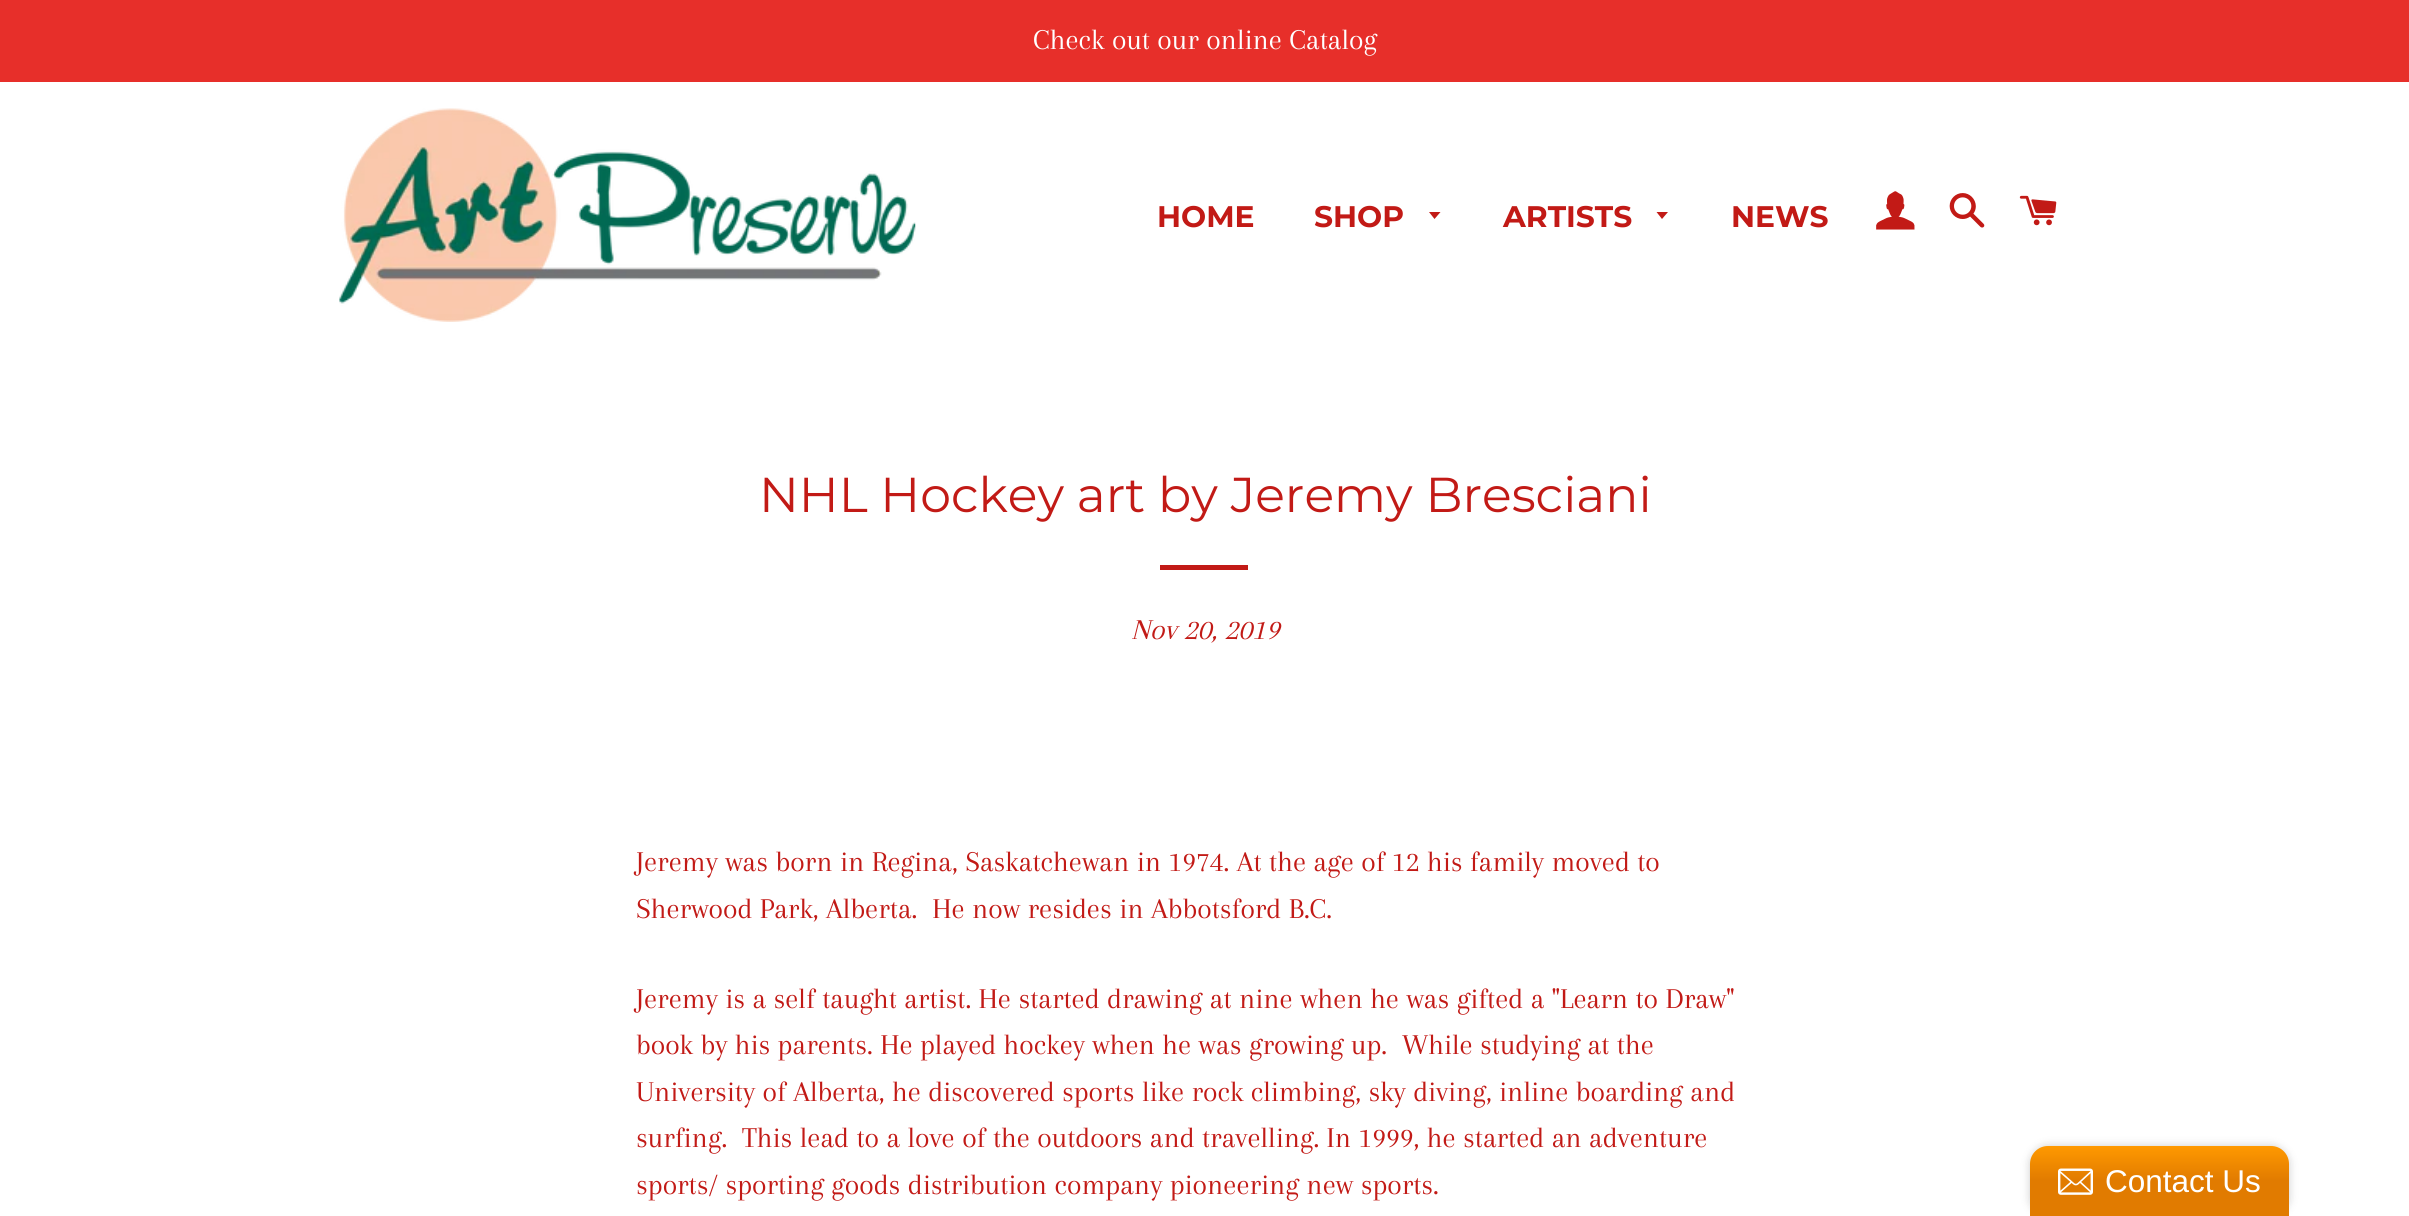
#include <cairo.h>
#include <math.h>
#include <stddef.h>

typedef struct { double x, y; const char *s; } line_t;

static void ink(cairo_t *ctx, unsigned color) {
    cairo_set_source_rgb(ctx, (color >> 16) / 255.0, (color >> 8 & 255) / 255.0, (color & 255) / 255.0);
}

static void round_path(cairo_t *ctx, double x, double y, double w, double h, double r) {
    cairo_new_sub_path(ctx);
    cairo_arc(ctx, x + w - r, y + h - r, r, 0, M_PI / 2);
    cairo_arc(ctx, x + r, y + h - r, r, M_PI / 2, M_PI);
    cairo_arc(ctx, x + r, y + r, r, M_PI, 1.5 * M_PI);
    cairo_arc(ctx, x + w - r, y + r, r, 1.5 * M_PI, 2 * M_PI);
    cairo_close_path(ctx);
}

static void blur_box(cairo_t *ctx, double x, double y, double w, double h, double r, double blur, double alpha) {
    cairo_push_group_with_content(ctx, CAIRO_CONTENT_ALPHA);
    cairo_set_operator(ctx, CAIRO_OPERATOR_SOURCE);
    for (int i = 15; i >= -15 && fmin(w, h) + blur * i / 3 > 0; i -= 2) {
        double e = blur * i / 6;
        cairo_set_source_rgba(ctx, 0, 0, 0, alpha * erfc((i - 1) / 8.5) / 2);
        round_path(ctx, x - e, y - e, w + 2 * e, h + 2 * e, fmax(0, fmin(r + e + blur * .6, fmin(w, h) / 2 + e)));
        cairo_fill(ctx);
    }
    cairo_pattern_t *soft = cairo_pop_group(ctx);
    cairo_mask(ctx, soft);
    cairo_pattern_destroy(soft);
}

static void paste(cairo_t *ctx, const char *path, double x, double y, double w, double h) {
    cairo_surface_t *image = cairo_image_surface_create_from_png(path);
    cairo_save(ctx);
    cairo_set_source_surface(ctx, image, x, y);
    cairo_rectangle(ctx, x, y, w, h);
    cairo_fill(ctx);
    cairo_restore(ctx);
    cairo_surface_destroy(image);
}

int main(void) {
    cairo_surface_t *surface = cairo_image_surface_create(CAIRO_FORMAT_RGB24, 2409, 1216);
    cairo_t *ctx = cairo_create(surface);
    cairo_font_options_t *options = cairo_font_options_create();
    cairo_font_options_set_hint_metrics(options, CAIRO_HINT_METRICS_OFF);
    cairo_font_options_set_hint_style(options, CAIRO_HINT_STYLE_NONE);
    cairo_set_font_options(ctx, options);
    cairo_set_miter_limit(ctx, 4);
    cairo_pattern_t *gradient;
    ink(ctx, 0xFFFFFF);
    cairo_paint(ctx);
    ink(ctx, 0xE72F2A);
    cairo_rectangle(ctx, 0, 0, 2409, 82);
    cairo_fill(ctx);
    cairo_select_font_face(ctx, "Arapey", CAIRO_FONT_SLANT_NORMAL, CAIRO_FONT_WEIGHT_NORMAL);
    cairo_set_font_size(ctx, 29.75);
    ink(ctx, 0xFFFFFF);
    cairo_move_to(ctx, 1033, 49);
    cairo_show_text(ctx, "Check out our online Catalog");
    paste(ctx, "media/1.png", 339, 108, 577, 214);
    cairo_select_font_face(ctx, "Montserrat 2 Thin", CAIRO_FONT_SLANT_NORMAL, CAIRO_FONT_WEIGHT_NORMAL);
    ink(ctx, 0xC21A16);
    cairo_move_to(ctx, 1157, 227);
    cairo_show_text(ctx, "HOME");
    cairo_move_to(ctx, 1314, 227);
    cairo_show_text(ctx, "SHOP");
    cairo_new_path(ctx);
    cairo_move_to(ctx, 1429, 212);
    cairo_line_to(ctx, 1434.5, 219);
    cairo_line_to(ctx, 1440.5, 212);
    cairo_close_path(ctx);
    cairo_fill(ctx);
    cairo_move_to(ctx, 1503, 227);
    cairo_show_text(ctx, "ARTISTS");
    cairo_new_path(ctx);
    cairo_move_to(ctx, 1656.5, 212);
    cairo_line_to(ctx, 1662, 219);
    cairo_line_to(ctx, 1668, 212);
    cairo_close_path(ctx);
    cairo_fill(ctx);
    cairo_move_to(ctx, 1731, 227);
    cairo_show_text(ctx, "NEWS");
    paste(ctx, "media/2.png", 1876, 191, 39, 39);
    paste(ctx, "media/3.png", 1949, 193, 36, 35);
    paste(ctx, "media/4.png", 2019, 195, 38, 31);
    cairo_select_font_face(ctx, "Montserrat Thin", CAIRO_FONT_SLANT_NORMAL, CAIRO_FONT_WEIGHT_NORMAL);
    cairo_set_font_size(ctx, 49);
    cairo_move_to(ctx, 759, 512);
    cairo_show_text(ctx, "NHL Hockey art by Jeremy Bresciani");
    cairo_rectangle(ctx, 1160, 565, 88, 5);
    cairo_fill(ctx);
    cairo_select_font_face(ctx, "Arapey", CAIRO_FONT_SLANT_ITALIC, CAIRO_FONT_WEIGHT_NORMAL);
    cairo_set_font_size(ctx, 29.75);
    cairo_move_to(ctx, 1131, 639);
    cairo_show_text(ctx, "Nov 20, 2019");
    cairo_select_font_face(ctx, "Arapey", CAIRO_FONT_SLANT_NORMAL, CAIRO_FONT_WEIGHT_NORMAL);
    {
        static const line_t items[] = {
            {636, 871, "Jeremy was born in Regina, Saskatchewan in 1974. At the age of 12 his family moved to"},
            {636, 918, "Sherwood Park, Alberta.  He now resides in Abbotsford B.C."},
            {636, 1008, "Jeremy is a self taught artist. He started drawing at nine when he was gifted a \"Learn to Draw\""},
            {636, 1054, "book by his parents. He played hockey when he was growing up.  While studying at the"},
            {636, 1101, "University of Alberta, he discovered sports like rock climbing, sky diving, inline boarding and"},
            {636, 1147, "surfing.  This lead to a love of the outdoors and travelling. In 1999, he started an adventure"},
            {636, 1194, "sports/ sporting goods distribution company pioneering new sports."},
        };
        for (size_t i = 0; i < sizeof items / sizeof *items; i++) {
            cairo_move_to(ctx, items[i].x, items[i].y);
            cairo_show_text(ctx, items[i].s);
        }
    }
    ink(ctx, 0x000000);
    blur_box(ctx, 2030, 1146, 259, 70, 18, 4.5, 0.2);
    gradient = cairo_pattern_create_linear(2160, 1146, 2160, 1216);
    cairo_pattern_add_color_stop_rgba(gradient, 0, 1, 0.6, 0, 1);
    cairo_pattern_add_color_stop_rgba(gradient, 0.5, 0.882, 0.482, 0, 1);
    cairo_set_source(ctx, gradient);
    cairo_pattern_destroy(gradient);
    cairo_new_path(ctx);
    cairo_move_to(ctx, 2048, 1146);
    cairo_line_to(ctx, 2271, 1146);
    cairo_curve_to(ctx, 2281, 1146, 2289, 1154, 2289, 1164);
    cairo_line_to(ctx, 2289, 1216);
    cairo_line_to(ctx, 2030, 1216);
    cairo_line_to(ctx, 2030, 1164);
    cairo_curve_to(ctx, 2030, 1154, 2038, 1146, 2048, 1146);
    cairo_close_path(ctx);
    cairo_fill(ctx);
    paste(ctx, "media/5.png", 2058, 1168, 35, 27);
    cairo_select_font_face(ctx, "Liberation Sans", CAIRO_FONT_SLANT_NORMAL, CAIRO_FONT_WEIGHT_NORMAL);
    cairo_set_font_size(ctx, 31.5);
    ink(ctx, 0xFFFFFF);
    cairo_move_to(ctx, 2105, 1192);
    cairo_show_text(ctx, "Contact Us");
    cairo_surface_write_to_png(surface, "image.png");
    cairo_font_options_destroy(options);
    cairo_destroy(ctx);
    cairo_surface_destroy(surface);
    return 0;
}
